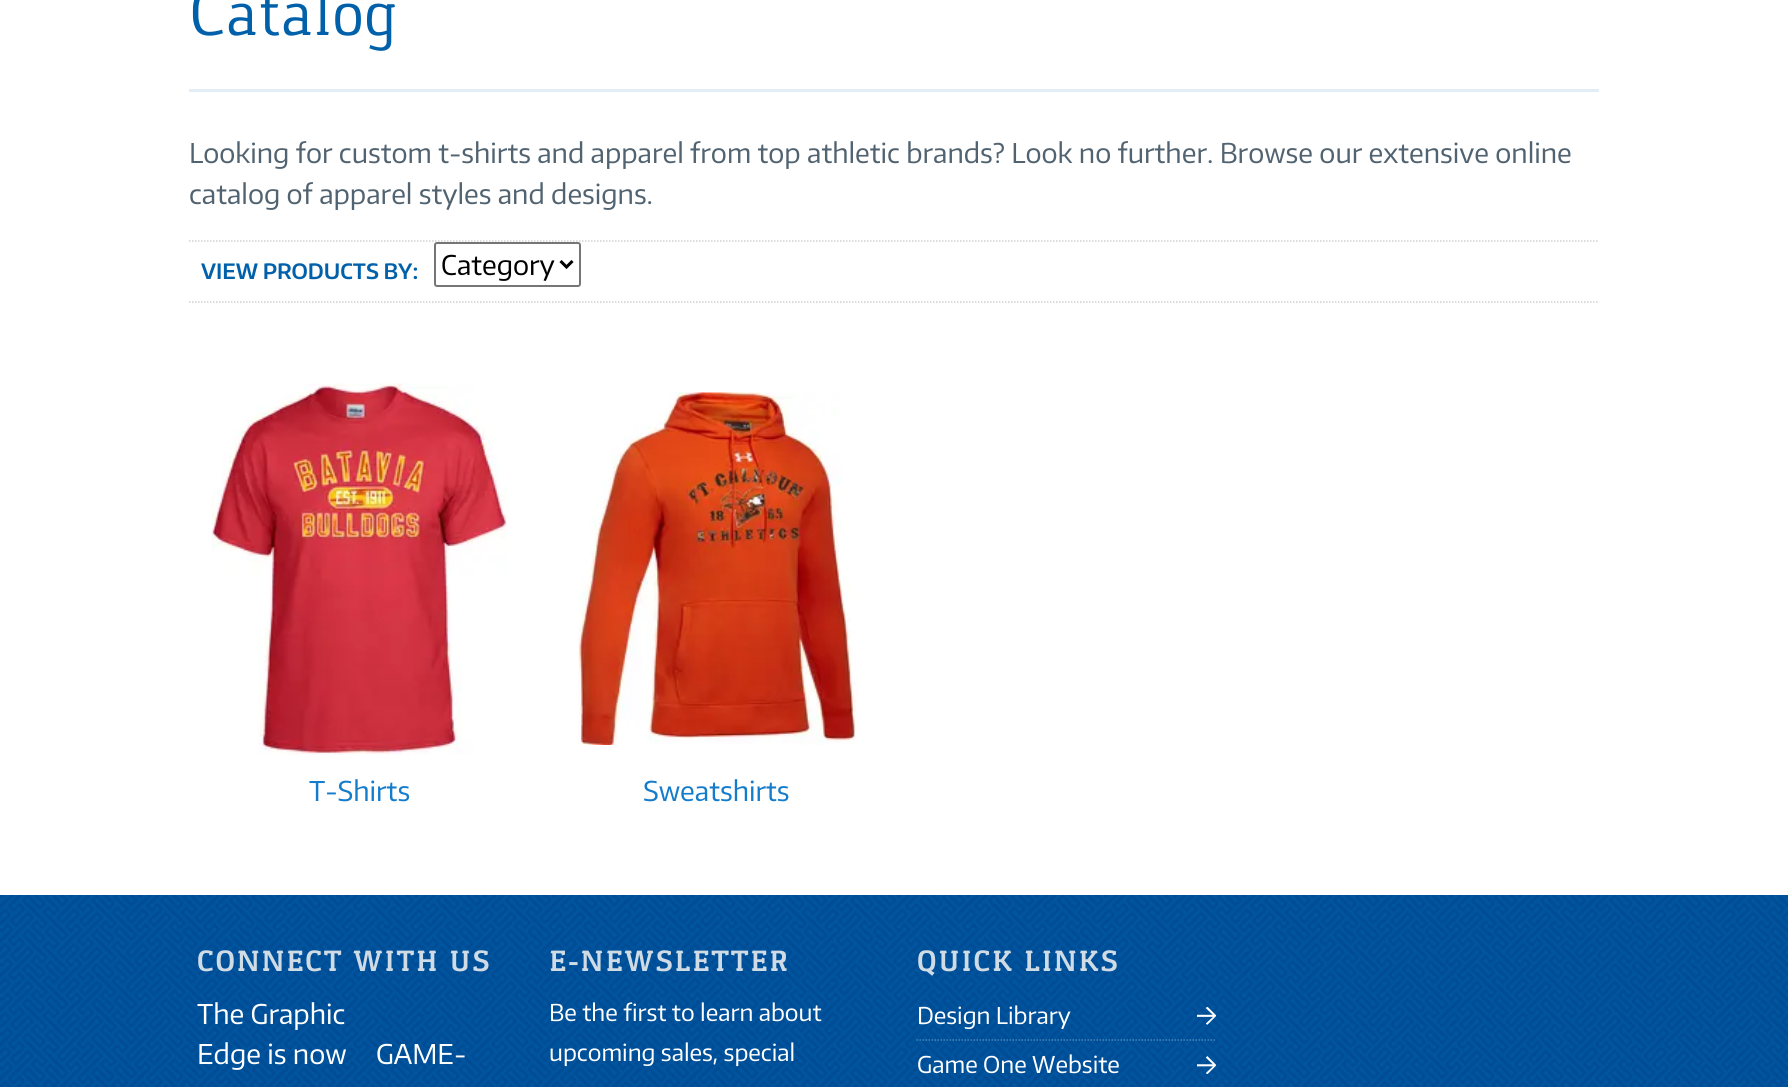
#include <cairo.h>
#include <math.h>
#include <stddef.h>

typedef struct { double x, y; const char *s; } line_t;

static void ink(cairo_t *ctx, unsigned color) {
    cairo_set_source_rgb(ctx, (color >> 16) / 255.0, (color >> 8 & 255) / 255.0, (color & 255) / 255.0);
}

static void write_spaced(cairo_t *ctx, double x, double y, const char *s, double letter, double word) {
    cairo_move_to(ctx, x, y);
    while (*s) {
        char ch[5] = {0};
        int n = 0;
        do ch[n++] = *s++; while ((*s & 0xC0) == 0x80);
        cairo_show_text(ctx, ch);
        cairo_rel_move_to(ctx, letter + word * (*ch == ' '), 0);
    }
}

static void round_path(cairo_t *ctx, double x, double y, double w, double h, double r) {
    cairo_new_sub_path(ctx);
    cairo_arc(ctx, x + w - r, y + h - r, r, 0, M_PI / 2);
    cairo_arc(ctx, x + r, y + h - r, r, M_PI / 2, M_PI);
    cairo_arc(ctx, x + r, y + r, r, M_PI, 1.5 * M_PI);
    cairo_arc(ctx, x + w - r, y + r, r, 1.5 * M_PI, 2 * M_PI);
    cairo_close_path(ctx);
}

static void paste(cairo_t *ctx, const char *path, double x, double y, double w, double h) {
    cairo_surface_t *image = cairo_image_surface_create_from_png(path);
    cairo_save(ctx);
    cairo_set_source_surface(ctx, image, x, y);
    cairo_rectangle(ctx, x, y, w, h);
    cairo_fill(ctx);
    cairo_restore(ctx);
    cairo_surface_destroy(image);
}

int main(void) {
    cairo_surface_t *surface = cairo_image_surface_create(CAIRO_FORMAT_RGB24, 1788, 1087);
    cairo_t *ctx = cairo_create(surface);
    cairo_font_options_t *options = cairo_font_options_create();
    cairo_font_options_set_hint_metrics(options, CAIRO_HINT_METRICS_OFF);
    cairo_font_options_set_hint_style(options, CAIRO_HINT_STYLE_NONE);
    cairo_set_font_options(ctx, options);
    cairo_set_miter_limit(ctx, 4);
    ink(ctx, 0xFFFFFF);
    cairo_paint(ctx);
    cairo_select_font_face(ctx, "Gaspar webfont", CAIRO_FONT_SLANT_NORMAL, CAIRO_FONT_WEIGHT_NORMAL);
    cairo_set_font_size(ctx, 67.5);
    ink(ctx, 0x0061AA);
    cairo_move_to(ctx, 189, 35);
    cairo_show_text(ctx, "Catalog");
    ink(ctx, 0xE3EDF5);
    cairo_rectangle(ctx, 189, 89, 1410, 3);
    cairo_fill(ctx);
    cairo_select_font_face(ctx, "Encode Sans", CAIRO_FONT_SLANT_NORMAL, CAIRO_FONT_WEIGHT_NORMAL);
    cairo_set_font_size(ctx, 27);
    ink(ctx, 0x516370);
    cairo_move_to(ctx, 189, 163);
    cairo_show_text(ctx, "Looking for custom t-shirts and apparel from top athletic brands? Look no further. Browse our extensive online");
    cairo_move_to(ctx, 189, 204);
    cairo_show_text(ctx, "catalog of apparel styles and designs.");
    cairo_new_path(ctx);
    cairo_move_to(ctx, 189, 241);
    cairo_line_to(ctx, 1599, 241);
    ink(ctx, 0xCDD2D6);
    cairo_set_line_width(ctx, 1.5);
    cairo_set_dash(ctx, (double[]){1.5, 1.5}, 2, 0);
    cairo_stroke(ctx);
    cairo_new_path(ctx);
    cairo_move_to(ctx, 189, 302);
    cairo_line_to(ctx, 1599, 302);
    cairo_stroke(ctx);
    cairo_select_font_face(ctx, "Encode Sans SemiBold", CAIRO_FONT_SLANT_NORMAL, CAIRO_FONT_WEIGHT_NORMAL);
    cairo_set_font_size(ctx, 21);
    ink(ctx, 0x0061AA);
    cairo_move_to(ctx, 201, 279);
    cairo_show_text(ctx, "VIEW PRODUCTS BY:");
    round_path(ctx, 435, 243, 145, 43, 2);
    ink(ctx, 0x767676);
    cairo_set_line_width(ctx, 2);
    cairo_set_dash(ctx, NULL, 0, 0);
    cairo_stroke(ctx);
    cairo_new_path(ctx);
    cairo_move_to(ctx, 560.5, 261);
    cairo_line_to(ctx, 566.5, 267);
    cairo_line_to(ctx, 572.5, 261);
    ink(ctx, 0x000000);
    cairo_set_line_width(ctx, 3);
    cairo_stroke(ctx);
    cairo_select_font_face(ctx, "Encode Sans", CAIRO_FONT_SLANT_NORMAL, CAIRO_FONT_WEIGHT_NORMAL);
    cairo_set_font_size(ctx, 27);
    cairo_move_to(ctx, 441, 275);
    cairo_show_text(ctx, "Category");
    paste(ctx, "media/1.png", 211, 383, 296, 372);
    ink(ctx, 0x147CCB);
    cairo_move_to(ctx, 309, 801);
    cairo_show_text(ctx, "T-Shirts");
    paste(ctx, "media/2.png", 578, 392, 280, 353);
    cairo_move_to(ctx, 643, 801);
    cairo_show_text(ctx, "Sweatshirts");
    paste(ctx, "media/3.png", 0, 895, 1788, 192);
    cairo_select_font_face(ctx, "Gaspar webfont", CAIRO_FONT_SLANT_NORMAL, CAIRO_FONT_WEIGHT_BOLD);
    cairo_set_font_size(ctx, 30.4);
    ink(ctx, 0xCFDBE5);
    write_spaced(ctx, 197, 971, "CONNECT WITH US", 1.8, 0);
    cairo_select_font_face(ctx, "Encode Sans", CAIRO_FONT_SLANT_NORMAL, CAIRO_FONT_WEIGHT_NORMAL);
    cairo_set_font_size(ctx, 27);
    ink(ctx, 0xFFFFFF);
    {
        static const line_t items[] = {
            {197, 1024, "The Graphic"},
            {197, 1064, "Edge is now"},
            {376, 1064, "GAME-"},
        };
        for (size_t i = 0; i < sizeof items / sizeof *items; i++) {
            cairo_move_to(ctx, items[i].x, items[i].y);
            cairo_show_text(ctx, items[i].s);
        }
    }
    cairo_select_font_face(ctx, "Gaspar webfont", CAIRO_FONT_SLANT_NORMAL, CAIRO_FONT_WEIGHT_BOLD);
    cairo_set_font_size(ctx, 30.4);
    ink(ctx, 0xCFDBE5);
    write_spaced(ctx, 549, 971, "E-NEWSLETTER", 1.8, 0);
    cairo_select_font_face(ctx, "Encode Sans", CAIRO_FONT_SLANT_NORMAL, CAIRO_FONT_WEIGHT_NORMAL);
    cairo_set_font_size(ctx, 23);
    ink(ctx, 0xFFFFFF);
    cairo_move_to(ctx, 549, 1021);
    cairo_show_text(ctx, "Be the first to learn about");
    cairo_move_to(ctx, 549, 1061);
    cairo_show_text(ctx, "upcoming sales, special");
    cairo_select_font_face(ctx, "Gaspar webfont", CAIRO_FONT_SLANT_NORMAL, CAIRO_FONT_WEIGHT_BOLD);
    cairo_set_font_size(ctx, 30.4);
    ink(ctx, 0xCFDBE5);
    write_spaced(ctx, 917, 971, "QUICK LINKS", 1.8, 0);
    cairo_new_path(ctx);
    cairo_move_to(ctx, 916.5, 1040);
    cairo_line_to(ctx, 1216.5, 1040);
    cairo_set_source_rgba(ctx, 1, 1, 1, 0.29);
    cairo_set_line_width(ctx, 1.5);
    cairo_set_dash(ctx, (double[]){1.5, 1.5}, 2, 0);
    cairo_stroke(ctx);
    paste(ctx, "media/4.png", 1197, 1007, 20, 18);
    cairo_select_font_face(ctx, "Encode Sans", CAIRO_FONT_SLANT_NORMAL, CAIRO_FONT_WEIGHT_NORMAL);
    cairo_set_font_size(ctx, 23);
    ink(ctx, 0xFFFFFF);
    cairo_move_to(ctx, 917, 1024);
    cairo_show_text(ctx, "Design Library");
    paste(ctx, "media/5.png", 1197, 1056, 20, 18);
    cairo_move_to(ctx, 917, 1073);
    cairo_show_text(ctx, "Game One Website");
    cairo_surface_write_to_png(surface, "image.png");
    cairo_font_options_destroy(options);
    cairo_destroy(ctx);
    cairo_surface_destroy(surface);
    return 0;
}
